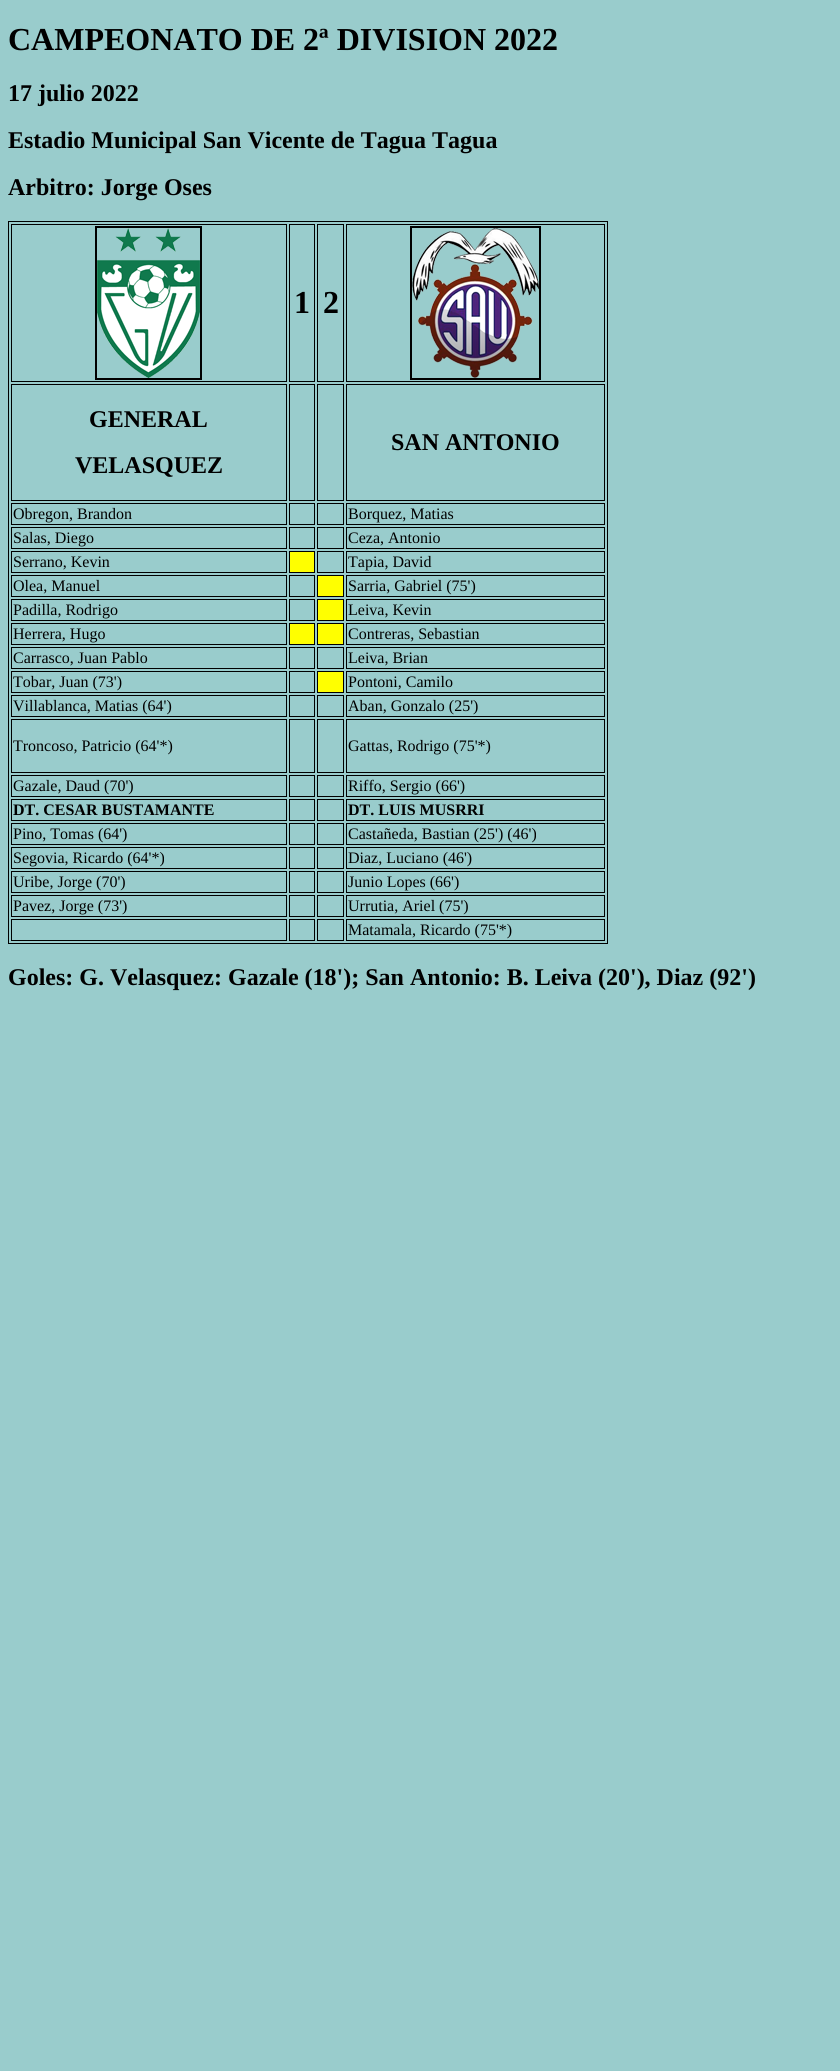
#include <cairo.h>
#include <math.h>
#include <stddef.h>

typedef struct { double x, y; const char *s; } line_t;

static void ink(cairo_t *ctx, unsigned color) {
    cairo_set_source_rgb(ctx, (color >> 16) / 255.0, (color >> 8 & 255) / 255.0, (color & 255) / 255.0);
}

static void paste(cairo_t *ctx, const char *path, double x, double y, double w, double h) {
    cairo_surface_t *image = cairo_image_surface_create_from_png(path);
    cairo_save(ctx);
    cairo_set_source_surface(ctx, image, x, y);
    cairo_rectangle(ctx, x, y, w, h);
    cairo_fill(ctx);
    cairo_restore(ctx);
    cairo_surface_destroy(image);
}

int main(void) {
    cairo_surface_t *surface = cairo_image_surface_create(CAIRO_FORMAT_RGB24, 840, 2071);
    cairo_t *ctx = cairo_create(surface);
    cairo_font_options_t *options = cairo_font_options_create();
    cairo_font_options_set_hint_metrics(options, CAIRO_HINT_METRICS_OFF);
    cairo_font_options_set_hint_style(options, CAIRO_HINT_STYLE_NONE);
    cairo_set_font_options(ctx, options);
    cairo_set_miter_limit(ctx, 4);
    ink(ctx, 0x99CCCC);
    cairo_paint(ctx);
    cairo_select_font_face(ctx, "Liberation Serif", CAIRO_FONT_SLANT_NORMAL, CAIRO_FONT_WEIGHT_BOLD);
    cairo_set_font_size(ctx, 32);
    ink(ctx, 0x000000);
    cairo_move_to(ctx, 8, 50);
    cairo_show_text(ctx, "CAMPEONATO DE 2ª DIVISION 2022");
    cairo_set_font_size(ctx, 24);
    {
        static const line_t items[] = {
            {8, 101, "17 julio 2022"},
            {8, 148, "Estadio Municipal San Vicente de Tagua Tagua"},
            {8, 195, "Arbitro: Jorge Oses"},
        };
        for (size_t i = 0; i < sizeof items / sizeof *items; i++) {
            cairo_move_to(ctx, items[i].x, items[i].y);
            cairo_show_text(ctx, items[i].s);
        }
    }
    cairo_rectangle(ctx, 8.5, 221.5, 599, 722);
    cairo_set_line_width(ctx, 1);
    cairo_stroke(ctx);
    cairo_rectangle(ctx, 11.5, 224.5, 275, 157);
    cairo_stroke(ctx);
    cairo_rectangle(ctx, 96, 227, 105, 152);
    cairo_set_line_width(ctx, 2);
    cairo_stroke(ctx);
    paste(ctx, "media/1.png", 97, 228, 103, 150);
    cairo_rectangle(ctx, 289.5, 224.5, 25, 157);
    cairo_set_line_width(ctx, 1);
    cairo_stroke(ctx);
    cairo_set_font_size(ctx, 32);
    cairo_move_to(ctx, 294, 313);
    cairo_show_text(ctx, "1");
    cairo_rectangle(ctx, 317.5, 224.5, 26, 157);
    cairo_stroke(ctx);
    cairo_move_to(ctx, 323, 313);
    cairo_show_text(ctx, "2");
    cairo_rectangle(ctx, 346.5, 224.5, 258, 157);
    cairo_stroke(ctx);
    cairo_rectangle(ctx, 411, 227, 129, 152);
    cairo_set_line_width(ctx, 2);
    cairo_stroke(ctx);
    paste(ctx, "media/2.png", 412, 228, 127, 150);
    cairo_rectangle(ctx, 11.5, 384.5, 275, 116);
    cairo_set_line_width(ctx, 1);
    cairo_stroke(ctx);
    cairo_set_font_size(ctx, 24);
    cairo_move_to(ctx, 89, 427);
    cairo_show_text(ctx, "GENERAL");
    cairo_move_to(ctx, 75, 473);
    cairo_show_text(ctx, "VELASQUEZ");
    cairo_rectangle(ctx, 289.5, 384.5, 25, 116);
    cairo_stroke(ctx);
    cairo_rectangle(ctx, 317.5, 384.5, 26, 116);
    cairo_stroke(ctx);
    cairo_rectangle(ctx, 346.5, 384.5, 258, 116);
    cairo_stroke(ctx);
    cairo_move_to(ctx, 391, 450);
    cairo_show_text(ctx, "SAN ANTONIO");
    cairo_rectangle(ctx, 11.5, 503.5, 275, 21);
    cairo_stroke(ctx);
    cairo_select_font_face(ctx, "Liberation Serif", CAIRO_FONT_SLANT_NORMAL, CAIRO_FONT_WEIGHT_NORMAL);
    cairo_set_font_size(ctx, 16);
    cairo_move_to(ctx, 13, 519);
    cairo_show_text(ctx, "Obregon, Brandon");
    cairo_rectangle(ctx, 289.5, 503.5, 25, 21);
    cairo_stroke(ctx);
    cairo_rectangle(ctx, 317.5, 503.5, 26, 21);
    cairo_stroke(ctx);
    cairo_rectangle(ctx, 346.5, 503.5, 258, 21);
    cairo_stroke(ctx);
    cairo_move_to(ctx, 348, 519);
    cairo_show_text(ctx, "Borquez, Matias");
    cairo_rectangle(ctx, 11.5, 527.5, 275, 21);
    cairo_stroke(ctx);
    cairo_move_to(ctx, 13, 543);
    cairo_show_text(ctx, "Salas, Diego");
    cairo_rectangle(ctx, 289.5, 527.5, 25, 21);
    cairo_stroke(ctx);
    cairo_rectangle(ctx, 317.5, 527.5, 26, 21);
    cairo_stroke(ctx);
    cairo_rectangle(ctx, 346.5, 527.5, 258, 21);
    cairo_stroke(ctx);
    cairo_move_to(ctx, 348, 543);
    cairo_show_text(ctx, "Ceza, Antonio");
    cairo_rectangle(ctx, 11.5, 551.5, 275, 21);
    cairo_stroke(ctx);
    cairo_move_to(ctx, 13, 567);
    cairo_show_text(ctx, "Serrano, Kevin");
    ink(ctx, 0xFFFF00);
    cairo_rectangle(ctx, 289.5, 551.5, 25, 21);
    cairo_fill_preserve(ctx);
    ink(ctx, 0x000000);
    cairo_stroke(ctx);
    cairo_rectangle(ctx, 317.5, 551.5, 26, 21);
    cairo_stroke(ctx);
    cairo_rectangle(ctx, 346.5, 551.5, 258, 21);
    cairo_stroke(ctx);
    cairo_move_to(ctx, 348, 567);
    cairo_show_text(ctx, "Tapia, David");
    cairo_rectangle(ctx, 11.5, 575.5, 275, 21);
    cairo_stroke(ctx);
    cairo_move_to(ctx, 13, 591);
    cairo_show_text(ctx, "Olea, Manuel");
    cairo_rectangle(ctx, 289.5, 575.5, 25, 21);
    cairo_stroke(ctx);
    ink(ctx, 0xFFFF00);
    cairo_rectangle(ctx, 317.5, 575.5, 26, 21);
    cairo_fill_preserve(ctx);
    ink(ctx, 0x000000);
    cairo_stroke(ctx);
    cairo_rectangle(ctx, 346.5, 575.5, 258, 21);
    cairo_stroke(ctx);
    cairo_move_to(ctx, 348, 591);
    cairo_show_text(ctx, "Sarria, Gabriel (75')");
    cairo_rectangle(ctx, 11.5, 599.5, 275, 21);
    cairo_stroke(ctx);
    cairo_move_to(ctx, 13, 615);
    cairo_show_text(ctx, "Padilla, Rodrigo");
    cairo_rectangle(ctx, 289.5, 599.5, 25, 21);
    cairo_stroke(ctx);
    ink(ctx, 0xFFFF00);
    cairo_rectangle(ctx, 317.5, 599.5, 26, 21);
    cairo_fill_preserve(ctx);
    ink(ctx, 0x000000);
    cairo_stroke(ctx);
    cairo_rectangle(ctx, 346.5, 599.5, 258, 21);
    cairo_stroke(ctx);
    cairo_move_to(ctx, 348, 615);
    cairo_show_text(ctx, "Leiva, Kevin");
    cairo_rectangle(ctx, 11.5, 623.5, 275, 21);
    cairo_stroke(ctx);
    cairo_move_to(ctx, 13, 639);
    cairo_show_text(ctx, "Herrera, Hugo");
    ink(ctx, 0xFFFF00);
    cairo_rectangle(ctx, 289.5, 623.5, 25, 21);
    cairo_fill_preserve(ctx);
    ink(ctx, 0x000000);
    cairo_stroke(ctx);
    ink(ctx, 0xFFFF00);
    cairo_rectangle(ctx, 317.5, 623.5, 26, 21);
    cairo_fill_preserve(ctx);
    ink(ctx, 0x000000);
    cairo_stroke(ctx);
    cairo_rectangle(ctx, 346.5, 623.5, 258, 21);
    cairo_stroke(ctx);
    cairo_move_to(ctx, 348, 639);
    cairo_show_text(ctx, "Contreras, Sebastian");
    cairo_rectangle(ctx, 11.5, 647.5, 275, 21);
    cairo_stroke(ctx);
    cairo_move_to(ctx, 13, 663);
    cairo_show_text(ctx, "Carrasco, Juan Pablo");
    cairo_rectangle(ctx, 289.5, 647.5, 25, 21);
    cairo_stroke(ctx);
    cairo_rectangle(ctx, 317.5, 647.5, 26, 21);
    cairo_stroke(ctx);
    cairo_rectangle(ctx, 346.5, 647.5, 258, 21);
    cairo_stroke(ctx);
    cairo_move_to(ctx, 348, 663);
    cairo_show_text(ctx, "Leiva, Brian");
    cairo_rectangle(ctx, 11.5, 671.5, 275, 21);
    cairo_stroke(ctx);
    cairo_move_to(ctx, 13, 687);
    cairo_show_text(ctx, "Tobar, Juan (73')");
    cairo_rectangle(ctx, 289.5, 671.5, 25, 21);
    cairo_stroke(ctx);
    ink(ctx, 0xFFFF00);
    cairo_rectangle(ctx, 317.5, 671.5, 26, 21);
    cairo_fill_preserve(ctx);
    ink(ctx, 0x000000);
    cairo_stroke(ctx);
    cairo_rectangle(ctx, 346.5, 671.5, 258, 21);
    cairo_stroke(ctx);
    cairo_move_to(ctx, 348, 687);
    cairo_show_text(ctx, "Pontoni, Camilo");
    cairo_rectangle(ctx, 11.5, 695.5, 275, 21);
    cairo_stroke(ctx);
    cairo_move_to(ctx, 13, 711);
    cairo_show_text(ctx, "Villablanca, Matias (64')");
    cairo_rectangle(ctx, 289.5, 695.5, 25, 21);
    cairo_stroke(ctx);
    cairo_rectangle(ctx, 317.5, 695.5, 26, 21);
    cairo_stroke(ctx);
    cairo_rectangle(ctx, 346.5, 695.5, 258, 21);
    cairo_stroke(ctx);
    cairo_move_to(ctx, 348, 711);
    cairo_show_text(ctx, "Aban, Gonzalo (25')");
    cairo_rectangle(ctx, 11.5, 719.5, 275, 53);
    cairo_stroke(ctx);
    cairo_move_to(ctx, 13, 751);
    cairo_show_text(ctx, "Troncoso, Patricio (64'*)");
    cairo_rectangle(ctx, 289.5, 719.5, 25, 53);
    cairo_stroke(ctx);
    cairo_rectangle(ctx, 317.5, 719.5, 26, 53);
    cairo_stroke(ctx);
    cairo_rectangle(ctx, 346.5, 719.5, 258, 53);
    cairo_stroke(ctx);
    cairo_move_to(ctx, 348, 751);
    cairo_show_text(ctx, "Gattas, Rodrigo (75'*)");
    cairo_rectangle(ctx, 11.5, 775.5, 275, 21);
    cairo_stroke(ctx);
    cairo_move_to(ctx, 13, 791);
    cairo_show_text(ctx, "Gazale, Daud (70')");
    cairo_rectangle(ctx, 289.5, 775.5, 25, 21);
    cairo_stroke(ctx);
    cairo_rectangle(ctx, 317.5, 775.5, 26, 21);
    cairo_stroke(ctx);
    cairo_rectangle(ctx, 346.5, 775.5, 258, 21);
    cairo_stroke(ctx);
    cairo_move_to(ctx, 348, 791);
    cairo_show_text(ctx, "Riffo, Sergio (66')");
    cairo_rectangle(ctx, 11.5, 799.5, 275, 21);
    cairo_stroke(ctx);
    cairo_select_font_face(ctx, "Liberation Serif", CAIRO_FONT_SLANT_NORMAL, CAIRO_FONT_WEIGHT_BOLD);
    cairo_move_to(ctx, 13, 815);
    cairo_show_text(ctx, "DT. CESAR BUSTAMANTE");
    cairo_rectangle(ctx, 289.5, 799.5, 25, 21);
    cairo_stroke(ctx);
    cairo_rectangle(ctx, 317.5, 799.5, 26, 21);
    cairo_stroke(ctx);
    cairo_rectangle(ctx, 346.5, 799.5, 258, 21);
    cairo_stroke(ctx);
    cairo_move_to(ctx, 348, 815);
    cairo_show_text(ctx, "DT. LUIS MUSRRI");
    cairo_rectangle(ctx, 11.5, 823.5, 275, 21);
    cairo_stroke(ctx);
    cairo_select_font_face(ctx, "Liberation Serif", CAIRO_FONT_SLANT_NORMAL, CAIRO_FONT_WEIGHT_NORMAL);
    cairo_move_to(ctx, 13, 839);
    cairo_show_text(ctx, "Pino, Tomas (64')");
    cairo_rectangle(ctx, 289.5, 823.5, 25, 21);
    cairo_stroke(ctx);
    cairo_rectangle(ctx, 317.5, 823.5, 26, 21);
    cairo_stroke(ctx);
    cairo_rectangle(ctx, 346.5, 823.5, 258, 21);
    cairo_stroke(ctx);
    cairo_move_to(ctx, 348, 839);
    cairo_show_text(ctx, "Castañeda, Bastian (25') (46')");
    cairo_rectangle(ctx, 11.5, 847.5, 275, 21);
    cairo_stroke(ctx);
    cairo_move_to(ctx, 13, 863);
    cairo_show_text(ctx, "Segovia, Ricardo (64'*)");
    cairo_rectangle(ctx, 289.5, 847.5, 25, 21);
    cairo_stroke(ctx);
    cairo_rectangle(ctx, 317.5, 847.5, 26, 21);
    cairo_stroke(ctx);
    cairo_rectangle(ctx, 346.5, 847.5, 258, 21);
    cairo_stroke(ctx);
    cairo_move_to(ctx, 348, 863);
    cairo_show_text(ctx, "Diaz, Luciano (46')");
    cairo_rectangle(ctx, 11.5, 871.5, 275, 21);
    cairo_stroke(ctx);
    cairo_move_to(ctx, 13, 887);
    cairo_show_text(ctx, "Uribe, Jorge (70')");
    cairo_rectangle(ctx, 289.5, 871.5, 25, 21);
    cairo_stroke(ctx);
    cairo_rectangle(ctx, 317.5, 871.5, 26, 21);
    cairo_stroke(ctx);
    cairo_rectangle(ctx, 346.5, 871.5, 258, 21);
    cairo_stroke(ctx);
    cairo_move_to(ctx, 348, 887);
    cairo_show_text(ctx, "Junio Lopes (66')");
    cairo_rectangle(ctx, 11.5, 895.5, 275, 21);
    cairo_stroke(ctx);
    cairo_move_to(ctx, 13, 911);
    cairo_show_text(ctx, "Pavez, Jorge (73')");
    cairo_rectangle(ctx, 289.5, 895.5, 25, 21);
    cairo_stroke(ctx);
    cairo_rectangle(ctx, 317.5, 895.5, 26, 21);
    cairo_stroke(ctx);
    cairo_rectangle(ctx, 346.5, 895.5, 258, 21);
    cairo_stroke(ctx);
    cairo_move_to(ctx, 348, 911);
    cairo_show_text(ctx, "Urrutia, Ariel (75')");
    cairo_rectangle(ctx, 11.5, 919.5, 275, 21);
    cairo_stroke(ctx);
    cairo_rectangle(ctx, 289.5, 919.5, 25, 21);
    cairo_stroke(ctx);
    cairo_rectangle(ctx, 317.5, 919.5, 26, 21);
    cairo_stroke(ctx);
    cairo_rectangle(ctx, 346.5, 919.5, 258, 21);
    cairo_stroke(ctx);
    cairo_move_to(ctx, 348, 935);
    cairo_show_text(ctx, "Matamala, Ricardo (75'*)");
    cairo_select_font_face(ctx, "Liberation Serif", CAIRO_FONT_SLANT_NORMAL, CAIRO_FONT_WEIGHT_BOLD);
    cairo_set_font_size(ctx, 24);
    cairo_move_to(ctx, 8, 985);
    cairo_show_text(ctx, "Goles: G. Velasquez: Gazale (18'); San Antonio: B. Leiva (20'), Diaz (92')");
    cairo_surface_write_to_png(surface, "image.png");
    cairo_font_options_destroy(options);
    cairo_destroy(ctx);
    cairo_surface_destroy(surface);
    return 0;
}
